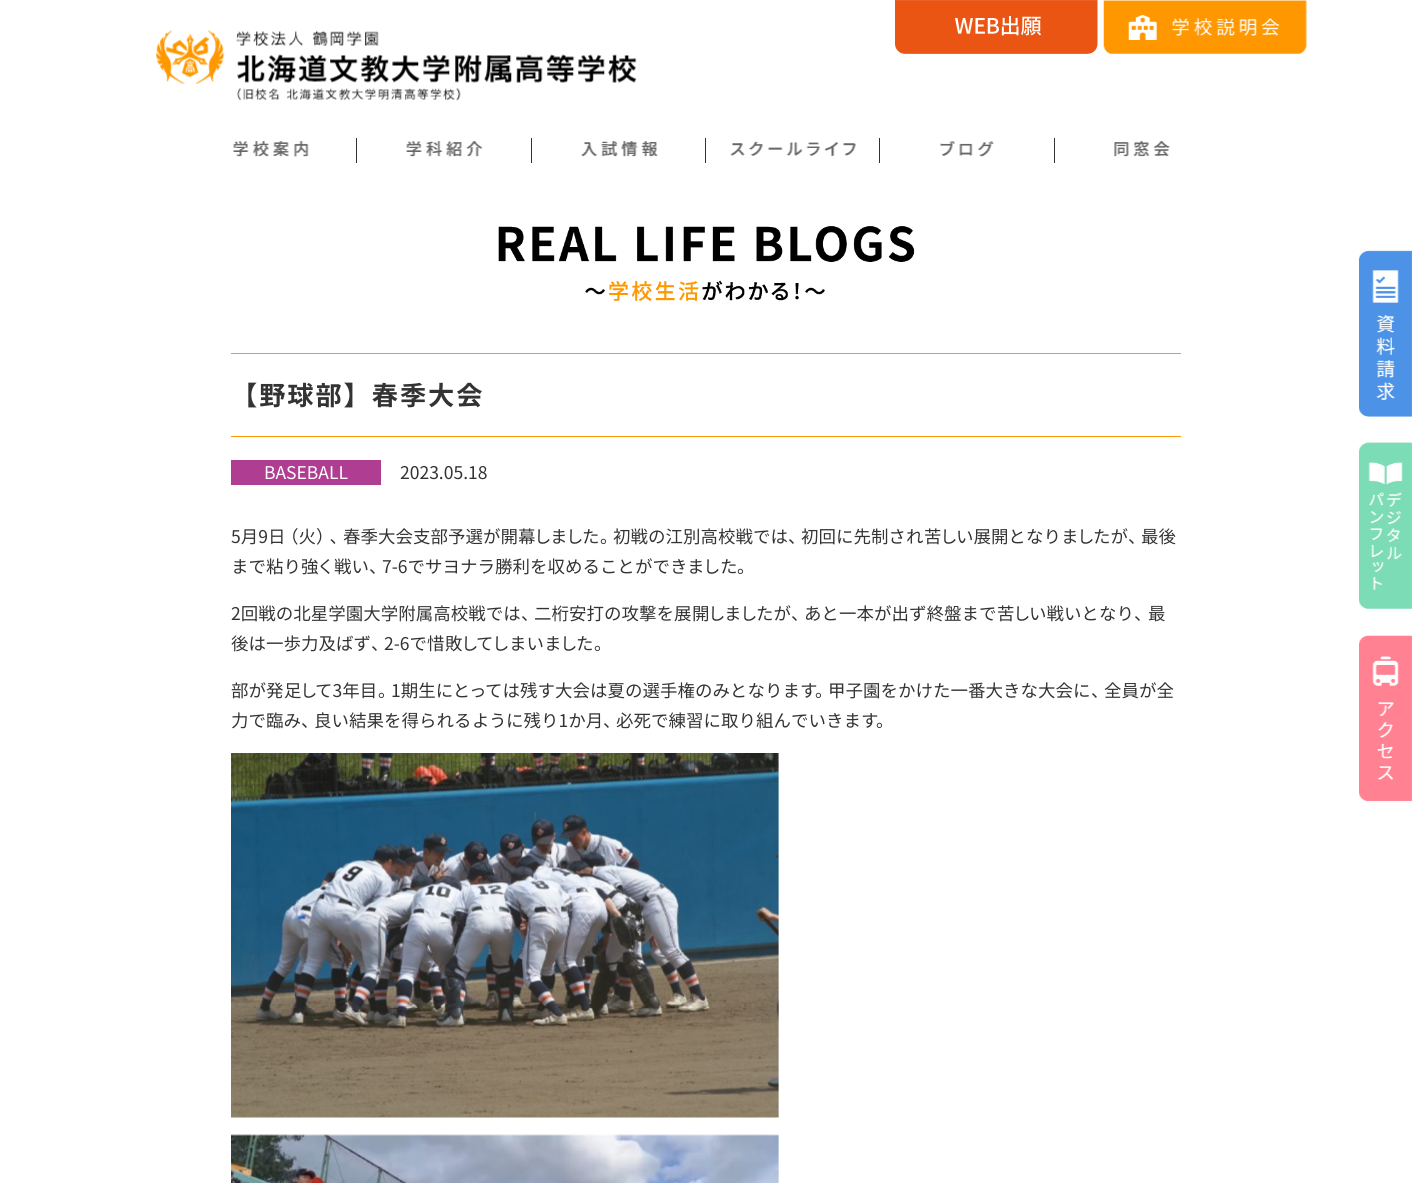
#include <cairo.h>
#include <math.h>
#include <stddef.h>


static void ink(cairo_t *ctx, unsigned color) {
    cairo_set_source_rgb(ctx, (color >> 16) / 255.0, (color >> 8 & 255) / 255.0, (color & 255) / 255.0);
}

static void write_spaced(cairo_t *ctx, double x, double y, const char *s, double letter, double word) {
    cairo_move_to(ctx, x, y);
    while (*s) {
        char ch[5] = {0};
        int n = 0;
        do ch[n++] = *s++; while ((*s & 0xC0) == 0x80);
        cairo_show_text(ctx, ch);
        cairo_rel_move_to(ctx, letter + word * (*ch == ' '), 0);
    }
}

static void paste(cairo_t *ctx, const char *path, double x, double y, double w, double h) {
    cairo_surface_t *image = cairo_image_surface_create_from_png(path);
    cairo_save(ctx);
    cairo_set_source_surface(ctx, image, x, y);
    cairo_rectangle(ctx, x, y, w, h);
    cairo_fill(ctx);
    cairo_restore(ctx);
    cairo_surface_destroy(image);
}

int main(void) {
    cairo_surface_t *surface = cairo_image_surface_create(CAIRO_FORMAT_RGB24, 1412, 1183);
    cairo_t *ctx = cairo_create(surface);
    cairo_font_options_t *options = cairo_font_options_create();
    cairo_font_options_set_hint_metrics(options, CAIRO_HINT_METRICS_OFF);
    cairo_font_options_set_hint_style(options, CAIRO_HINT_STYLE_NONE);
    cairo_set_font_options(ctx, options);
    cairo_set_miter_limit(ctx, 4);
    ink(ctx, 0xFFFFFF);
    cairo_paint(ctx);
    paste(ctx, "media/1.png", 156, 30, 481, 71);
    paste(ctx, "media/2.png", 895, 0, 203, 54);
    paste(ctx, "media/3.png", 1103, 0, 204, 54);
    paste(ctx, "media/4.png", 233, 141, 76, 16);
    ink(ctx, 0x333333);
    cairo_rectangle(ctx, 356, 138, 1, 25);
    cairo_fill(ctx);
    paste(ctx, "media/5.png", 406, 141, 77, 16);
    cairo_rectangle(ctx, 531, 138, 1, 25);
    cairo_fill(ctx);
    paste(ctx, "media/6.png", 581, 141, 77, 16);
    cairo_rectangle(ctx, 705, 138, 1, 25);
    cairo_fill(ctx);
    paste(ctx, "media/7.png", 730, 141, 126, 15);
    cairo_rectangle(ctx, 879, 138, 1, 25);
    cairo_fill(ctx);
    paste(ctx, "media/8.png", 940, 141, 54, 16);
    cairo_rectangle(ctx, 1054, 138, 1, 25);
    cairo_fill(ctx);
    paste(ctx, "media/9.png", 1114, 141, 56, 16);
    paste(ctx, "media/10.png", 1359, 250, 53, 167);
    paste(ctx, "media/11.png", 1359, 442, 53, 167);
    paste(ctx, "media/12.png", 1359, 635, 53, 167);
    paste(ctx, "media/13.png", 498, 226, 417, 76);
    ink(ctx, 0xFF9800);
    cairo_rectangle(ctx, 231, 353, 950, 1);
    cairo_fill(ctx);
    cairo_rectangle(ctx, 231, 436, 950, 1);
    cairo_fill(ctx);
    cairo_select_font_face(ctx, "Noto Sans JP", CAIRO_FONT_SLANT_NORMAL, CAIRO_FONT_WEIGHT_BOLD);
    cairo_set_font_size(ctx, 26.25);
    ink(ctx, 0x333333);
    write_spaced(ctx, 231, 405, "【野球部】春季大会", 1.9, 0);
    ink(ctx, 0xAF3D92);
    cairo_rectangle(ctx, 231, 460, 150, 25);
    cairo_fill(ctx);
    cairo_select_font_face(ctx, "Noto Sans JP", CAIRO_FONT_SLANT_NORMAL, CAIRO_FONT_WEIGHT_NORMAL);
    cairo_set_font_size(ctx, 17.5);
    ink(ctx, 0xFFFFFF);
    cairo_move_to(ctx, 264, 479);
    cairo_show_text(ctx, "BASEBALL");
    ink(ctx, 0x333333);
    cairo_move_to(ctx, 400, 479);
    cairo_show_text(ctx, "2023.05.18");
    cairo_move_to(ctx, 231, 543);
    cairo_show_text(ctx, "5月9");
    write_spaced(ctx, 268, 543, "日", -4, 0);
    cairo_move_to(ctx, 281, 543);
    cairo_show_text(ctx, "（火");
    write_spaced(ctx, 316, 543, "）、", -4, 0);
    cairo_move_to(ctx, 343, 543);
    cairo_show_text(ctx, "春季大会支部予選が開");
    write_spaced(ctx, 518, 543, "幕しまし", -1.5, 0);
    cairo_move_to(ctx, 582, 543);
    cairo_show_text(ctx, "た");
    write_spaced(ctx, 600, 543, "。", -4, 0);
    cairo_move_to(ctx, 613, 543);
    cairo_show_text(ctx, "初戦の江別高校戦では");
    write_spaced(ctx, 788, 543, "、", -4, 0);
    cairo_move_to(ctx, 801, 543);
    cairo_show_text(ctx, "初回に先制され");
    write_spaced(ctx, 924, 543, "苦し", -1.5, 0);
    cairo_move_to(ctx, 956, 543);
    cairo_show_text(ctx, "い展開となり");
    write_spaced(ctx, 1061, 543, "まし", -1.5, 0);
    cairo_move_to(ctx, 1093, 543);
    cairo_show_text(ctx, "たが");
    write_spaced(ctx, 1128, 543, "、", -4, 0);
    cairo_move_to(ctx, 1141, 543);
    cairo_show_text(ctx, "最後");
    cairo_move_to(ctx, 231, 573);
    cairo_show_text(ctx, "まで粘り");
    write_spaced(ctx, 301, 573, "強く", -1.5, 0);
    cairo_move_to(ctx, 334, 573);
    cairo_show_text(ctx, "戦い");
    write_spaced(ctx, 369, 573, "、", -4, 0);
    cairo_move_to(ctx, 382, 573);
    cairo_show_text(ctx, "7-6でサヨナラ勝利を収めることができ");
    write_spaced(ctx, 687, 573, "まし", -1.5, 0);
    cairo_move_to(ctx, 720, 573);
    cairo_show_text(ctx, "た");
    write_spaced(ctx, 737, 573, "。", -4, 0);
    cairo_move_to(ctx, 231, 620);
    cairo_show_text(ctx, "2回戦の北星学園大学附属高校戦では");
    write_spaced(ctx, 521, 620, "、", -4, 0);
    cairo_move_to(ctx, 534, 620);
    cairo_show_text(ctx, "二桁安打の攻撃を展");
    write_spaced(ctx, 692, 620, "開しまし", -1.5, 0);
    cairo_move_to(ctx, 756, 620);
    cairo_show_text(ctx, "たが");
    write_spaced(ctx, 791, 620, "、", -4, 0);
    cairo_move_to(ctx, 804, 620);
    cairo_show_text(ctx, "あと一本が出ず終盤まで");
    write_spaced(ctx, 997, 620, "苦し", -1.5, 0);
    cairo_move_to(ctx, 1029, 620);
    cairo_show_text(ctx, "い戦いとなり");
    write_spaced(ctx, 1134, 620, "、", -4, 0);
    cairo_move_to(ctx, 1148, 620);
    cairo_show_text(ctx, "最");
    cairo_move_to(ctx, 231, 650);
    cairo_show_text(ctx, "後は一歩力及ばず");
    write_spaced(ctx, 371, 650, "、", -4, 0);
    cairo_move_to(ctx, 384, 650);
    cairo_show_text(ctx, "2-6で惜");
    write_spaced(ctx, 445, 650, "敗", -1.5, 0);
    write_spaced(ctx, 461, 650, "し", -2, 0);
    write_spaced(ctx, 476, 650, "てし", -1.5, 0);
    cairo_move_to(ctx, 509, 650);
    cairo_show_text(ctx, "まい");
    write_spaced(ctx, 544, 650, "まし", -1.5, 0);
    cairo_move_to(ctx, 576, 650);
    cairo_show_text(ctx, "た");
    write_spaced(ctx, 594, 650, "。", -4, 0);
    cairo_move_to(ctx, 231, 697);
    cairo_show_text(ctx, "部が発");
    write_spaced(ctx, 284, 697, "足", -1.5, 0);
    write_spaced(ctx, 300, 697, "し", -2, 0);
    cairo_move_to(ctx, 315, 697);
    cairo_show_text(ctx, "て3年目");
    write_spaced(ctx, 378, 697, "。", -4, 0);
    cairo_move_to(ctx, 391, 697);
    cairo_show_text(ctx, "1期生に");
    write_spaced(ctx, 453, 697, "とっ", -1.5, 0);
    cairo_move_to(ctx, 485, 697);
    cairo_show_text(ctx, "ては残す大会は夏の選手権のみとなりま");
    write_spaced(ctx, 800, 697, "す", -3, 0);
    write_spaced(ctx, 815, 697, "。", -4, 0);
    cairo_move_to(ctx, 828, 697);
    cairo_show_text(ctx, "甲子園をかけた一番大きな大会に");
    write_spaced(ctx, 1091, 697, "、", -4, 0);
    cairo_move_to(ctx, 1104, 697);
    cairo_show_text(ctx, "全員が全");
    cairo_move_to(ctx, 231, 727);
    cairo_show_text(ctx, "力で臨み");
    write_spaced(ctx, 301, 727, "、", -4, 0);
    cairo_move_to(ctx, 314, 727);
    cairo_show_text(ctx, "良い結果を得られる");
    write_spaced(ctx, 472, 727, "よ", -1, 0);
    cairo_move_to(ctx, 489, 727);
    cairo_show_text(ctx, "う");
    cairo_move_to(ctx, 506, 727);
    cairo_show_text(ctx, "に残り1か月");
    write_spaced(ctx, 603, 727, "、", -4, 0);
    cairo_move_to(ctx, 616, 727);
    cairo_show_text(ctx, "必死で練習に取り組んでいきま");
    write_spaced(ctx, 861, 727, "す", -3, 0);
    write_spaced(ctx, 876, 727, "。", -4, 0);
    paste(ctx, "media/14.png", 231, 753, 548, 365);
    paste(ctx, "media/15.png", 231, 1134, 548, 49);
    cairo_surface_write_to_png(surface, "image.png");
    cairo_font_options_destroy(options);
    cairo_destroy(ctx);
    cairo_surface_destroy(surface);
    return 0;
}
